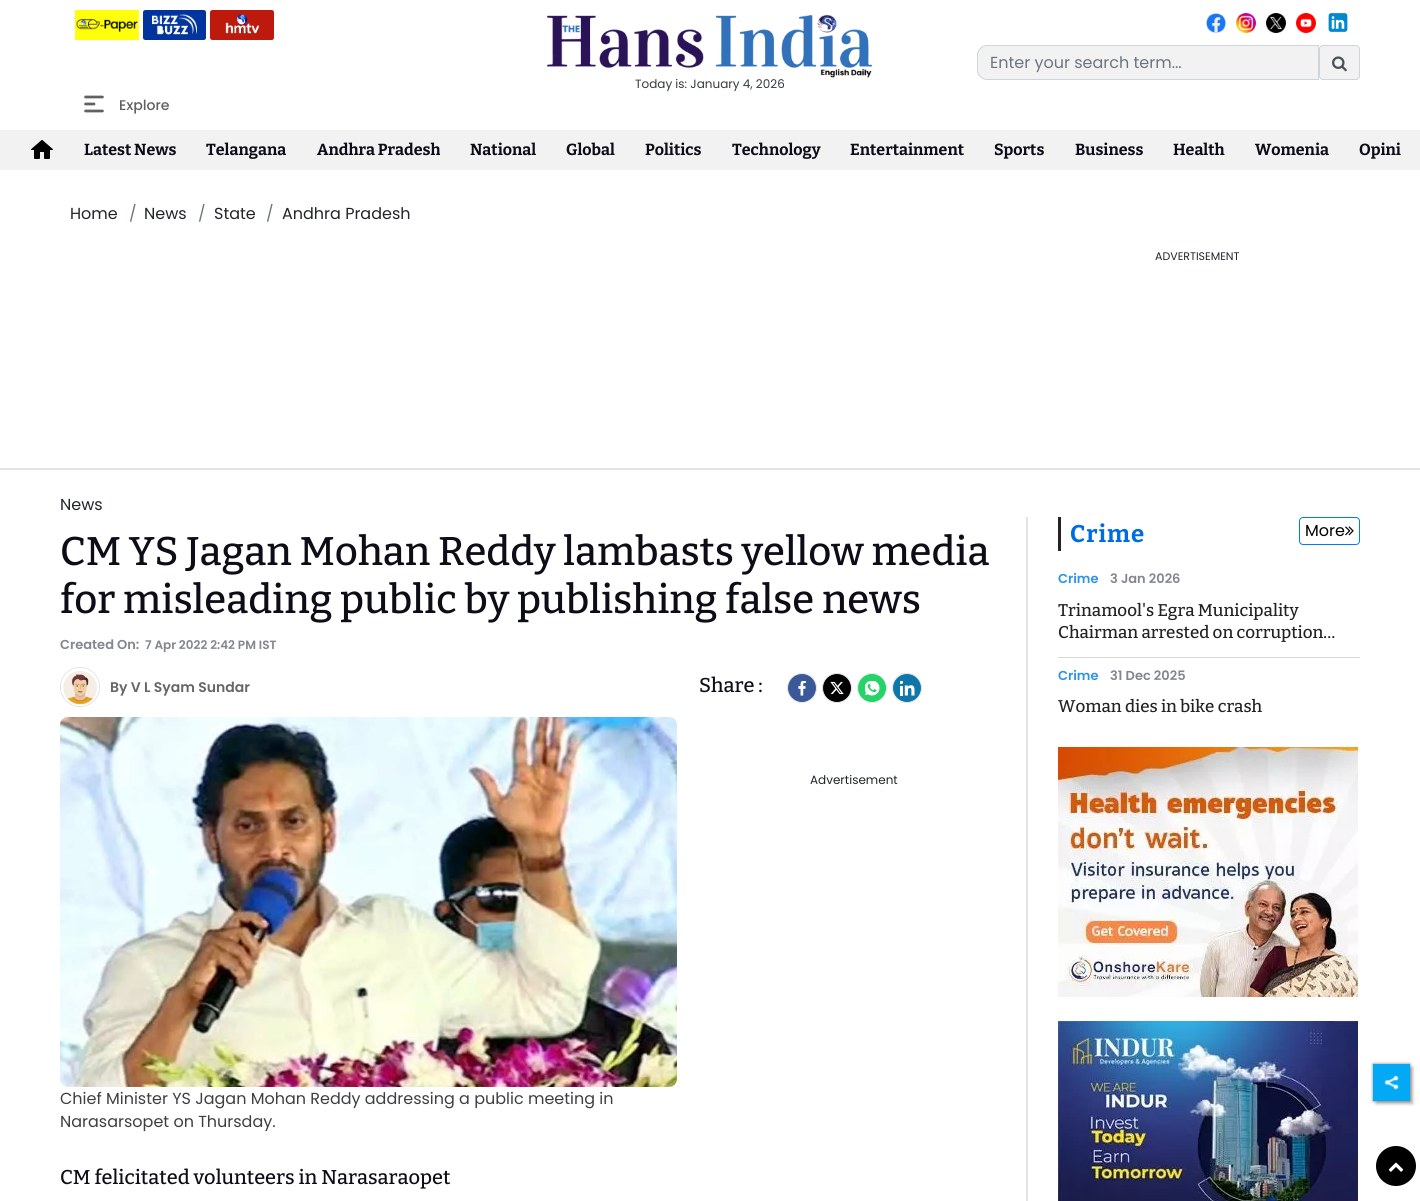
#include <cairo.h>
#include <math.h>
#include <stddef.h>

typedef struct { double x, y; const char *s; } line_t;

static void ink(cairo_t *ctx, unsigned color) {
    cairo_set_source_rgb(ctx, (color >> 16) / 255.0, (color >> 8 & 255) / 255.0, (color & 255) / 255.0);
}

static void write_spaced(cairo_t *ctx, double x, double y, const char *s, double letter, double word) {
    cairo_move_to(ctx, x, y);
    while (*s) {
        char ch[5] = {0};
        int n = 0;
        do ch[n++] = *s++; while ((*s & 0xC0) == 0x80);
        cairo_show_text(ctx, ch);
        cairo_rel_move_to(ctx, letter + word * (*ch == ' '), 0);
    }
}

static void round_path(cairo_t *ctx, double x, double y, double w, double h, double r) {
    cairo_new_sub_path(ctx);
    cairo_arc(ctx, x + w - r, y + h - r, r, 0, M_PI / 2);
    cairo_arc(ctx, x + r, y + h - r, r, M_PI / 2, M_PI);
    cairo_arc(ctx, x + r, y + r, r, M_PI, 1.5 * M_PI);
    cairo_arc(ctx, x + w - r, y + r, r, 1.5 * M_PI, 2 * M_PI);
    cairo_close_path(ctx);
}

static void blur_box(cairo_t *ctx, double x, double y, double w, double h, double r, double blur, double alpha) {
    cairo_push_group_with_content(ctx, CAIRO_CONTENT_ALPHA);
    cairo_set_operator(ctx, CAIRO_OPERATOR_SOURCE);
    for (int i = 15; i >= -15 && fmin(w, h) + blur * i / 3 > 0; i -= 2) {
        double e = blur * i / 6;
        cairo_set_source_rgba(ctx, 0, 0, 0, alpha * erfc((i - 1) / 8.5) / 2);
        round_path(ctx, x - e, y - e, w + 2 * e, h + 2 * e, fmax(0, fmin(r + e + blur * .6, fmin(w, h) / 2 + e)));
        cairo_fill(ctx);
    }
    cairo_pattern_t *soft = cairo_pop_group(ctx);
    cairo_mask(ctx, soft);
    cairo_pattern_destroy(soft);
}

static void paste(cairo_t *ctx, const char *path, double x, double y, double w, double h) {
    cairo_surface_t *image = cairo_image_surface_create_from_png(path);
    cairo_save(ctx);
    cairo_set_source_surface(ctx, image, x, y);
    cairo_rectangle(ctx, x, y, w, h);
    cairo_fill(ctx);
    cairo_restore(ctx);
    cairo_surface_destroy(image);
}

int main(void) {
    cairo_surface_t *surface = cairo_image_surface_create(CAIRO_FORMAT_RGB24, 1420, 1201);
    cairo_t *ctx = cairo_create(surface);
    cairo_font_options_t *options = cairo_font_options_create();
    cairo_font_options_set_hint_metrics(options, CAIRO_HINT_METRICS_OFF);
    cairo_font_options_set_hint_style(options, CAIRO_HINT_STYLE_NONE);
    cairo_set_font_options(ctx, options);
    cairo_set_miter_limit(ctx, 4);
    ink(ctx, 0xFFFFFF);
    cairo_paint(ctx);
    paste(ctx, "media/1.png", 75, 10, 64, 30);
    paste(ctx, "media/2.png", 143, 10, 63, 30);
    paste(ctx, "media/3.png", 210, 10, 64, 30);
    paste(ctx, "media/4.png", 1206, 13, 20, 20);
    paste(ctx, "media/5.png", 1236, 13, 20, 20);
    paste(ctx, "media/6.png", 1266, 13, 20, 20);
    paste(ctx, "media/7.png", 1296, 13, 20, 20);
    paste(ctx, "media/8.png", 1328, 13, 20, 19);
    ink(ctx, 0xF2F2F3);
    cairo_new_path(ctx);
    cairo_move_to(ctx, 987, 45.5);
    cairo_line_to(ctx, 1318.5, 45.5);
    cairo_line_to(ctx, 1318.5, 79.5);
    cairo_line_to(ctx, 987, 79.5);
    cairo_curve_to(ctx, 982, 79.5, 977.5, 75, 977.5, 70);
    cairo_line_to(ctx, 977.5, 55);
    cairo_curve_to(ctx, 977.5, 50, 982, 45.5, 987, 45.5);
    cairo_close_path(ctx);
    cairo_fill_preserve(ctx);
    ink(ctx, 0xCED4DA);
    cairo_set_line_width(ctx, 1);
    cairo_stroke(ctx);
    cairo_select_font_face(ctx, "Poppins", CAIRO_FONT_SLANT_NORMAL, CAIRO_FONT_WEIGHT_NORMAL);
    cairo_set_font_size(ctx, 16);
    ink(ctx, 0x6C757D);
    cairo_move_to(ctx, 990, 68);
    cairo_show_text(ctx, "Enter your search term...");
    ink(ctx, 0xF2F2F3);
    round_path(ctx, 1319.5, 45.5, 40, 34, 3.5);
    cairo_fill_preserve(ctx);
    ink(ctx, 0xCED4DA);
    cairo_stroke(ctx);
    paste(ctx, "media/9.png", 1332, 56, 15, 16);
    paste(ctx, "media/10.png", 547, 15, 325, 63);
    cairo_set_font_size(ctx, 12);
    ink(ctx, 0x343A40);
    cairo_move_to(ctx, 635, 88);
    cairo_show_text(ctx, "Today is: January 4, 2026");
    paste(ctx, "media/11.png", 84, 95, 85, 19);
    ink(ctx, 0xF2F2F3);
    cairo_rectangle(ctx, 0, 130, 1420, 40);
    cairo_fill(ctx);
    paste(ctx, "media/12.png", 31, 140, 22, 19);
    cairo_select_font_face(ctx, "Bitter", CAIRO_FONT_SLANT_NORMAL, CAIRO_FONT_WEIGHT_BOLD);
    cairo_set_font_size(ctx, 16);
    ink(ctx, 0x0C0D16);
    {
        static const line_t items[] = {
            {84, 155, "Latest News"},
            {206, 155, "Telangana"},
            {317, 155, "Andhra Pradesh"},
            {470, 155, "National"},
            {566, 155, "Global"},
            {645, 155, "Politics"},
            {732, 155, "Technology"},
            {850, 155, "Entertainment"},
            {994, 155, "Sports"},
            {1075, 155, "Business"},
            {1173, 155, "Health"},
            {1255, 155, "Womenia"},
            {1359, 155, "Opini"},
        };
        for (size_t i = 0; i < sizeof items / sizeof *items; i++) {
            cairo_move_to(ctx, items[i].x, items[i].y);
            cairo_show_text(ctx, items[i].s);
        }
    }
    cairo_select_font_face(ctx, "Poppins", CAIRO_FONT_SLANT_NORMAL, CAIRO_FONT_WEIGHT_NORMAL);
    ink(ctx, 0x212529);
    cairo_move_to(ctx, 70, 219);
    cairo_show_text(ctx, "Home");
    ink(ctx, 0x6C757D);
    cairo_move_to(ctx, 129, 219);
    cairo_show_text(ctx, "/");
    ink(ctx, 0x212529);
    cairo_move_to(ctx, 144, 219);
    cairo_show_text(ctx, "News");
    ink(ctx, 0x6C757D);
    cairo_move_to(ctx, 198, 219);
    cairo_show_text(ctx, "/");
    ink(ctx, 0x212529);
    cairo_move_to(ctx, 214, 219);
    cairo_show_text(ctx, "State");
    ink(ctx, 0x6C757D);
    cairo_move_to(ctx, 266, 219);
    cairo_show_text(ctx, "/");
    ink(ctx, 0x212529);
    cairo_move_to(ctx, 282, 219);
    cairo_show_text(ctx, "Andhra Pradesh");
    cairo_set_font_size(ctx, 11);
    cairo_move_to(ctx, 1155, 260);
    cairo_show_text(ctx, "ADVERTISEMENT");
    ink(ctx, 0xE4E4E4);
    cairo_rectangle(ctx, 0, 468, 1420, 2);
    cairo_fill(ctx);
    cairo_set_font_size(ctx, 16);
    ink(ctx, 0x212529);
    cairo_move_to(ctx, 60, 510);
    cairo_show_text(ctx, "News");
    ink(ctx, 0xE4E4E4);
    cairo_rectangle(ctx, 1026, 517, 2, 684);
    cairo_fill(ctx);
    cairo_select_font_face(ctx, "Bitter Medium", CAIRO_FONT_SLANT_NORMAL, CAIRO_FONT_WEIGHT_NORMAL);
    cairo_set_font_size(ctx, 40);
    ink(ctx, 0x0C0D16);
    cairo_move_to(ctx, 60, 565);
    cairo_show_text(ctx, "CM YS Jagan Mohan Reddy lambasts yellow media");
    cairo_move_to(ctx, 60, 613);
    cairo_show_text(ctx, "for misleading public by publishing false news");
    cairo_select_font_face(ctx, "Poppins SemiBold", CAIRO_FONT_SLANT_NORMAL, CAIRO_FONT_WEIGHT_NORMAL);
    cairo_set_font_size(ctx, 13);
    ink(ctx, 0x83858F);
    cairo_move_to(ctx, 60, 649);
    cairo_show_text(ctx, "Created On:");
    cairo_set_font_size(ctx, 12);
    cairo_move_to(ctx, 145, 649);
    cairo_show_text(ctx, "7 Apr 2022 2:42 PM IST");
    cairo_new_path(ctx);
    cairo_arc(ctx, 80, 687, 19.5, 0, 2 * M_PI);
    ink(ctx, 0xE2E2E2);
    cairo_stroke(ctx);
    paste(ctx, "media/13.png", 61, 668, 38, 38);
    cairo_set_font_size(ctx, 14);
    ink(ctx, 0x666666);
    cairo_move_to(ctx, 110, 692);
    cairo_show_text(ctx, "By V L Syam Sundar");
    cairo_select_font_face(ctx, "Bitter Medium", CAIRO_FONT_SLANT_NORMAL, CAIRO_FONT_WEIGHT_NORMAL);
    cairo_set_font_size(ctx, 20);
    ink(ctx, 0x0C0D16);
    cairo_move_to(ctx, 699, 692);
    cairo_show_text(ctx, "Share :");
    ink(ctx, 0x3B5998);
    cairo_new_path(ctx);
    cairo_arc(ctx, 802, 688, 14.5, 0, 2 * M_PI);
    cairo_fill_preserve(ctx);
    ink(ctx, 0xE7E8E9);
    cairo_stroke(ctx);
    paste(ctx, "media/14.png", 798, 681, 8, 15);
    ink(ctx, 0x000000);
    cairo_arc(ctx, 837, 688, 14.5, 0, 2 * M_PI);
    cairo_fill_preserve(ctx);
    ink(ctx, 0xE7E8E9);
    cairo_stroke(ctx);
    paste(ctx, "media/15.png", 830, 681, 14, 14);
    ink(ctx, 0x25D366);
    cairo_arc(ctx, 872, 688, 14.5, 0, 2 * M_PI);
    cairo_fill_preserve(ctx);
    ink(ctx, 0xE7E8E9);
    cairo_stroke(ctx);
    paste(ctx, "media/16.png", 865, 681, 15, 15);
    ink(ctx, 0x0E76A8);
    cairo_arc(ctx, 907, 688, 14.5, 0, 2 * M_PI);
    cairo_fill_preserve(ctx);
    ink(ctx, 0xE7E8E9);
    cairo_stroke(ctx);
    paste(ctx, "media/17.png", 900, 681, 15, 15);
    cairo_select_font_face(ctx, "Poppins", CAIRO_FONT_SLANT_NORMAL, CAIRO_FONT_WEIGHT_NORMAL);
    cairo_set_font_size(ctx, 12);
    ink(ctx, 0x212529);
    cairo_move_to(ctx, 810, 784);
    cairo_show_text(ctx, "Advertisement");
    paste(ctx, "media/18.png", 60, 717, 617, 370);
    cairo_set_font_size(ctx, 16);
    ink(ctx, 0x3F3F42);
    cairo_move_to(ctx, 60, 1104);
    cairo_show_text(ctx, "Chief Minister YS Jagan Mohan Reddy addressing a public meeting in");
    cairo_move_to(ctx, 60, 1127);
    cairo_show_text(ctx, "Narasarsopet on Thursday.");
    cairo_select_font_face(ctx, "Bitter Medium", CAIRO_FONT_SLANT_NORMAL, CAIRO_FONT_WEIGHT_NORMAL);
    cairo_set_font_size(ctx, 20);
    ink(ctx, 0x0C0D16);
    cairo_move_to(ctx, 60, 1184);
    cairo_show_text(ctx, "CM felicitated volunteers in Narasaraopet");
    ink(ctx, 0x232323);
    cairo_rectangle(ctx, 1058, 517, 3, 34);
    cairo_fill(ctx);
    cairo_select_font_face(ctx, "Bitter", CAIRO_FONT_SLANT_NORMAL, CAIRO_FONT_WEIGHT_BOLD);
    cairo_set_font_size(ctx, 24);
    ink(ctx, 0x006CE4);
    write_spaced(ctx, 1070, 542, "Crime", 1, 0);
    round_path(ctx, 1299.5, 517.5, 60, 27, 3.5);
    ink(ctx, 0x007BFF);
    cairo_stroke(ctx);
    cairo_select_font_face(ctx, "Poppins", CAIRO_FONT_SLANT_NORMAL, CAIRO_FONT_WEIGHT_NORMAL);
    cairo_set_font_size(ctx, 16);
    ink(ctx, 0x000000);
    cairo_move_to(ctx, 1305, 536);
    cairo_show_text(ctx, "More");
    paste(ctx, "media/19.png", 1345, 526, 9, 10);
    ink(ctx, 0xD8D8D8);
    cairo_rectangle(ctx, 1058, 657, 302, 1);
    cairo_fill(ctx);
    cairo_select_font_face(ctx, "Poppins SemiBold", CAIRO_FONT_SLANT_NORMAL, CAIRO_FONT_WEIGHT_NORMAL);
    cairo_set_font_size(ctx, 13);
    ink(ctx, 0x2D95E3);
    cairo_move_to(ctx, 1058, 583);
    cairo_show_text(ctx, "Crime");
    ink(ctx, 0x83858F);
    cairo_move_to(ctx, 1110, 583);
    cairo_show_text(ctx, "3 Jan 2026");
    cairo_save(ctx);
    cairo_rectangle(ctx, 1058, 600, 297, 44);
    cairo_clip(ctx);
    cairo_select_font_face(ctx, "Bitter Medium", CAIRO_FONT_SLANT_NORMAL, CAIRO_FONT_WEIGHT_NORMAL);
    cairo_set_font_size(ctx, 17);
    ink(ctx, 0x232323);
    cairo_move_to(ctx, 1058, 616);
    cairo_show_text(ctx, "Trinamool's Egra Municipality");
    cairo_restore(ctx);
    cairo_select_font_face(ctx, "Bitter Medium", CAIRO_FONT_SLANT_NORMAL, CAIRO_FONT_WEIGHT_NORMAL);
    cairo_set_font_size(ctx, 17);
    ink(ctx, 0x232323);
    cairo_move_to(ctx, 1058, 638);
    cairo_show_text(ctx, "Chairman arrested on corruption…");
    cairo_select_font_face(ctx, "Poppins SemiBold", CAIRO_FONT_SLANT_NORMAL, CAIRO_FONT_WEIGHT_NORMAL);
    cairo_set_font_size(ctx, 13);
    ink(ctx, 0x2D95E3);
    cairo_move_to(ctx, 1058, 680);
    cairo_show_text(ctx, "Crime");
    ink(ctx, 0x83858F);
    cairo_move_to(ctx, 1110, 680);
    cairo_show_text(ctx, "31 Dec 2025");
    cairo_select_font_face(ctx, "Bitter Medium", CAIRO_FONT_SLANT_NORMAL, CAIRO_FONT_WEIGHT_NORMAL);
    cairo_set_font_size(ctx, 17);
    ink(ctx, 0x232323);
    cairo_move_to(ctx, 1058, 712);
    cairo_show_text(ctx, "Woman dies in bike crash");
    paste(ctx, "media/20.png", 1058, 747, 300, 250);
    paste(ctx, "media/21.png", 1058, 1021, 300, 180);
    ink(ctx, 0x000000);
    blur_box(ctx, 1376, 1067, 37, 37, 0, 1.5, 0.25);
    blur_box(ctx, 1373, 1064, 37, 37, 0, 1.5, 0.5);
    ink(ctx, 0x03A9F4);
    cairo_rectangle(ctx, 1373, 1064, 37, 37);
    cairo_fill(ctx);
    paste(ctx, "media/22.png", 1384, 1075, 15, 15);
    ink(ctx, 0x000000);
    cairo_arc(ctx, 1396, 1166, 20, 0, 2 * M_PI);
    cairo_fill(ctx);
    paste(ctx, "media/23.png", 1388, 1162, 16, 10);
    cairo_surface_write_to_png(surface, "image.png");
    cairo_font_options_destroy(options);
    cairo_destroy(ctx);
    cairo_surface_destroy(surface);
    return 0;
}
